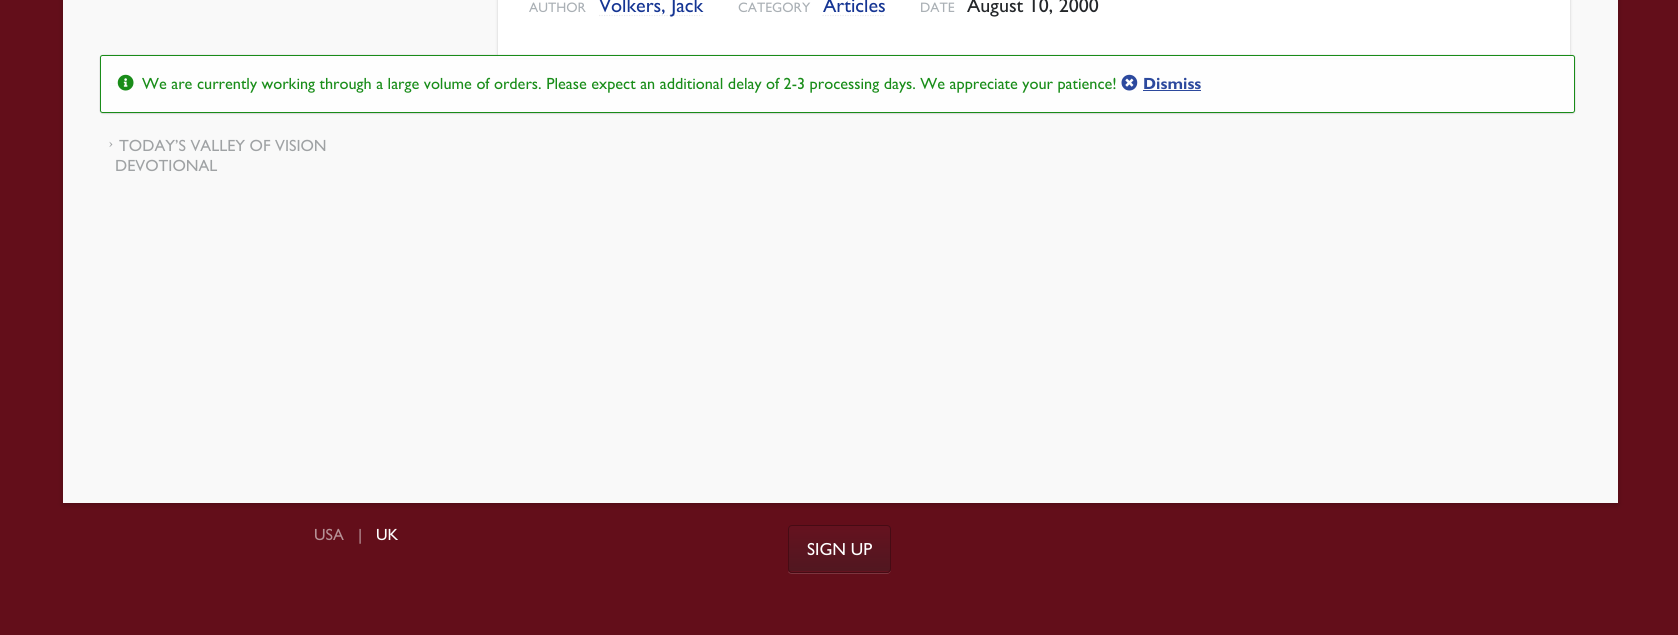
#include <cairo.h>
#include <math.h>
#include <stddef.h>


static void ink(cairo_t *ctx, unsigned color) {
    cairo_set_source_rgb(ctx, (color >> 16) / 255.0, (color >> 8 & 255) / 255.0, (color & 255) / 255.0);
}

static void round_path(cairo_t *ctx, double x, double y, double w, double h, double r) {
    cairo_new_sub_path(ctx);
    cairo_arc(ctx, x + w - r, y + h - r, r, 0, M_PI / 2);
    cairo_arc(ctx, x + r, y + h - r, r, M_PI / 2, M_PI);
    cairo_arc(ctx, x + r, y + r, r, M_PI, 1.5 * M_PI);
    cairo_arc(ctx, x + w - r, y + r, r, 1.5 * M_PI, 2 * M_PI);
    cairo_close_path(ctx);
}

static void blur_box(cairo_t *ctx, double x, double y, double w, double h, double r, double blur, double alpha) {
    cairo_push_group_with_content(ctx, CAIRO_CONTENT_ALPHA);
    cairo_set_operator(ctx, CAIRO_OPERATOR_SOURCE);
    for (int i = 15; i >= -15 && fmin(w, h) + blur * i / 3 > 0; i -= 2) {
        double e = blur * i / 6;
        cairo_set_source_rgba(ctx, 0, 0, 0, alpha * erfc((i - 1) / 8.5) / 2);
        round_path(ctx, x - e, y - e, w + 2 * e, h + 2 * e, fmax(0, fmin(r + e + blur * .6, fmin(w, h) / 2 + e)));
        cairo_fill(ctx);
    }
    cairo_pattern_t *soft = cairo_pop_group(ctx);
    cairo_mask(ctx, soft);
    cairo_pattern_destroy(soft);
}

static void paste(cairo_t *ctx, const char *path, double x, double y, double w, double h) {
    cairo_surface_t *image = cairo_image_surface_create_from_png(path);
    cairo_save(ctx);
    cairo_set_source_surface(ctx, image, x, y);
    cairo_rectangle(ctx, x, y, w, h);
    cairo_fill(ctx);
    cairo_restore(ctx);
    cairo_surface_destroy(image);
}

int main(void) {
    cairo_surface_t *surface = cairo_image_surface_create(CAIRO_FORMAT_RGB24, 1678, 635);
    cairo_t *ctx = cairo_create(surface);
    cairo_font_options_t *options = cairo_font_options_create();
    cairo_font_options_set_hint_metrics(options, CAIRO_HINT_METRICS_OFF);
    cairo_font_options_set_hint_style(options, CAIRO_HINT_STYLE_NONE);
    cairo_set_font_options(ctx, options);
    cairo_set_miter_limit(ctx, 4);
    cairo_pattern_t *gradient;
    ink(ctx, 0x630E1A);
    cairo_paint(ctx);
    ink(ctx, 0x000000);
    blur_box(ctx, 63, -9, 1555, 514, 0, 3, 0.2);
    ink(ctx, 0xF9F9F9);
    cairo_rectangle(ctx, 63, 0, 1555, 503);
    cairo_fill(ctx);
    ink(ctx, 0x000000);
    blur_box(ctx, 498, -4, 1072, 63, 1, 1, 0.15);
    blur_box(ctx, 498, -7, 1072, 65, 1, 2, 0.06);
    ink(ctx, 0xFFFFFF);
    round_path(ctx, 498, -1, 1072, 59, 1);
    cairo_fill(ctx);
    cairo_select_font_face(ctx, "Gill Sans Medium", CAIRO_FONT_SLANT_NORMAL, CAIRO_FONT_WEIGHT_NORMAL);
    cairo_set_font_size(ctx, 13.75);
    ink(ctx, 0xAAB0B5);
    cairo_move_to(ctx, 529, 12);
    cairo_show_text(ctx, "AUTHOR");
    cairo_new_path(ctx);
    cairo_move_to(ctx, 599, 15.5);
    cairo_line_to(ctx, 702.5, 15.5);
    ink(ctx, 0xEBEBEB);
    cairo_set_line_width(ctx, 1.2);
    cairo_set_dash(ctx, (double[]){1.25, 1.25}, 2, 0);
    cairo_stroke(ctx);
    cairo_set_font_size(ctx, 20);
    ink(ctx, 0x153593);
    cairo_move_to(ctx, 599, 12);
    cairo_show_text(ctx, "Volkers, Jack");
    cairo_set_font_size(ctx, 13.75);
    ink(ctx, 0xAAB0B5);
    cairo_move_to(ctx, 738, 12);
    cairo_show_text(ctx, "CATEGORY");
    cairo_new_path(ctx);
    cairo_move_to(ctx, 822.5, 15.5);
    cairo_line_to(ctx, 885, 15.5);
    ink(ctx, 0xEBEBEB);
    cairo_stroke(ctx);
    cairo_set_font_size(ctx, 20);
    ink(ctx, 0x153593);
    cairo_move_to(ctx, 823, 12);
    cairo_show_text(ctx, "Articles");
    cairo_set_font_size(ctx, 13.75);
    ink(ctx, 0xAAB0B5);
    cairo_move_to(ctx, 920, 12);
    cairo_show_text(ctx, "DATE");
    cairo_set_font_size(ctx, 20);
    ink(ctx, 0x24272A);
    cairo_move_to(ctx, 967, 12);
    cairo_show_text(ctx, "August 10, 2000");
    ink(ctx, 0xD9DBDE);
    cairo_rectangle(ctx, 109, 83, 340, 1);
    cairo_fill(ctx);
    cairo_rectangle(ctx, 109, 85, 340, 1);
    cairo_fill(ctx);
    cairo_save(ctx);
    cairo_set_fill_rule(ctx, CAIRO_FILL_RULE_EVEN_ODD);
    cairo_new_path(ctx);
    cairo_move_to(ctx, 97, 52);
    cairo_line_to(ctx, 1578, 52);
    cairo_line_to(ctx, 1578, 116);
    cairo_line_to(ctx, 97, 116);
    cairo_close_path(ctx);
    cairo_move_to(ctx, 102.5, 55);
    cairo_line_to(ctx, 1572.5, 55);
    cairo_curve_to(ctx, 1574, 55, 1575, 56, 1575, 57.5);
    cairo_line_to(ctx, 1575, 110.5);
    cairo_curve_to(ctx, 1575, 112, 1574, 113, 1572.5, 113);
    cairo_line_to(ctx, 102.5, 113);
    cairo_curve_to(ctx, 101, 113, 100, 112, 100, 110.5);
    cairo_line_to(ctx, 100, 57.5);
    cairo_curve_to(ctx, 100, 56, 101, 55, 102.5, 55);
    cairo_close_path(ctx);
    cairo_clip(ctx);
    ink(ctx, 0x000000);
    blur_box(ctx, 100, 55, 1475, 58, 2.5, 0.5, 0.18);
    cairo_restore(ctx);
    cairo_save(ctx);
    cairo_set_fill_rule(ctx, CAIRO_FILL_RULE_EVEN_ODD);
    cairo_new_path(ctx);
    cairo_move_to(ctx, 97, 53);
    cairo_line_to(ctx, 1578, 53);
    cairo_line_to(ctx, 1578, 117);
    cairo_line_to(ctx, 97, 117);
    cairo_close_path(ctx);
    cairo_move_to(ctx, 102.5, 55);
    cairo_line_to(ctx, 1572.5, 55);
    cairo_curve_to(ctx, 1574, 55, 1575, 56, 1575, 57.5);
    cairo_line_to(ctx, 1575, 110.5);
    cairo_curve_to(ctx, 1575, 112, 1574, 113, 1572.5, 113);
    cairo_line_to(ctx, 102.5, 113);
    cairo_curve_to(ctx, 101, 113, 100, 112, 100, 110.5);
    cairo_line_to(ctx, 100, 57.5);
    cairo_curve_to(ctx, 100, 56, 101, 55, 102.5, 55);
    cairo_close_path(ctx);
    cairo_clip(ctx);
    ink(ctx, 0x000000);
    blur_box(ctx, 100, 56, 1475, 58, 2.5, 0.5, 0.09);
    cairo_restore(ctx);
    cairo_set_source_rgba(ctx, 1, 1, 1, 0.9);
    round_path(ctx, 100, 55, 1475, 58, 2.5);
    cairo_fill(ctx);
    round_path(ctx, 100.5, 55.5, 1474, 57, 2);
    cairo_set_source_rgba(ctx, 0, 0.502, 0, 0.9);
    cairo_set_line_width(ctx, 1);
    cairo_set_dash(ctx, NULL, 0, 0);
    cairo_stroke(ctx);
    paste(ctx, "media/1.png", 117, 74, 17, 17);
    cairo_set_font_size(ctx, 16.25);
    ink(ctx, 0x198D19);
    cairo_move_to(ctx, 142, 89);
    cairo_show_text(ctx, "We are currently working through a large volume of orders. Please expect an additional delay of 2-3 processing days. We appreciate your patience!");
    paste(ctx, "media/2.png", 1121, 74, 17, 17);
    cairo_select_font_face(ctx, "Gill Sans", CAIRO_FONT_SLANT_NORMAL, CAIRO_FONT_WEIGHT_BOLD);
    ink(ctx, 0x2C499D);
    cairo_move_to(ctx, 1143, 89);
    cairo_show_text(ctx, "Dismiss");
    cairo_rectangle(ctx, 1143, 90, 58, 1);
    cairo_fill(ctx);
    cairo_select_font_face(ctx, "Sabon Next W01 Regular", CAIRO_FONT_SLANT_NORMAL, CAIRO_FONT_WEIGHT_NORMAL);
    cairo_set_font_size(ctx, 15);
    ink(ctx, 0x9FA2A4);
    cairo_move_to(ctx, 109, 148);
    cairo_show_text(ctx, "›");
    cairo_select_font_face(ctx, "Gill Sans Medium", CAIRO_FONT_SLANT_NORMAL, CAIRO_FONT_WEIGHT_NORMAL);
    cairo_set_font_size(ctx, 16.25);
    cairo_move_to(ctx, 119, 151);
    cairo_show_text(ctx, "TODAY’S VALLEY OF VISION");
    cairo_move_to(ctx, 115, 171);
    cairo_show_text(ctx, "DEVOTIONAL");
    ink(ctx, 0xB69196);
    cairo_move_to(ctx, 314, 540);
    cairo_show_text(ctx, "USA");
    cairo_move_to(ctx, 358, 540);
    cairo_show_text(ctx, "|");
    ink(ctx, 0xFFFFFF);
    cairo_move_to(ctx, 376, 540);
    cairo_show_text(ctx, "UK");
    ink(ctx, 0x7C353F);
    cairo_new_path(ctx);
    cairo_move_to(ctx, 788, 571);
    cairo_curve_to(ctx, 788, 573, 790, 574, 792, 574);
    cairo_line_to(ctx, 887, 574);
    cairo_curve_to(ctx, 889, 574, 891, 572, 891, 570);
    cairo_line_to(ctx, 889, 572);
    cairo_curve_to(ctx, 887, 573, 791, 573, 789, 572);
    cairo_close_path(ctx);
    cairo_fill(ctx);
    cairo_save(ctx);
    round_path(ctx, 788, 525, 103, 48, 4);
    cairo_clip(ctx);
    gradient = cairo_pattern_create_linear(839, 526, 839, 571);
    cairo_pattern_add_color_stop_rgba(gradient, 0, 0.396, 0.071, 0.122, 1);
    cairo_pattern_add_color_stop_rgba(gradient, 1, 0.318, 0.09, 0.125, 1);
    cairo_set_source(ctx, gradient);
    cairo_pattern_destroy(gradient);
    cairo_rectangle(ctx, 788, 526, 103, 45);
    cairo_fill(ctx);
    gradient = cairo_pattern_create_linear(839, 571, 839, 616);
    cairo_pattern_add_color_stop_rgba(gradient, 0, 0.396, 0.071, 0.122, 1);
    cairo_pattern_add_color_stop_rgba(gradient, 1, 0.318, 0.09, 0.125, 1);
    cairo_set_source(ctx, gradient);
    cairo_pattern_destroy(gradient);
    cairo_rectangle(ctx, 788, 571, 103, 2);
    cairo_fill(ctx);
    cairo_restore(ctx);
    round_path(ctx, 788.5, 525.5, 102, 47, 3.5);
    ink(ctx, 0x460B14);
    cairo_stroke(ctx);
    cairo_set_font_size(ctx, 17.5);
    ink(ctx, 0xFFFFFF);
    cairo_move_to(ctx, 807, 555);
    cairo_show_text(ctx, "SIGN UP");
    cairo_surface_write_to_png(surface, "image.png");
    cairo_font_options_destroy(options);
    cairo_destroy(ctx);
    cairo_surface_destroy(surface);
    return 0;
}
